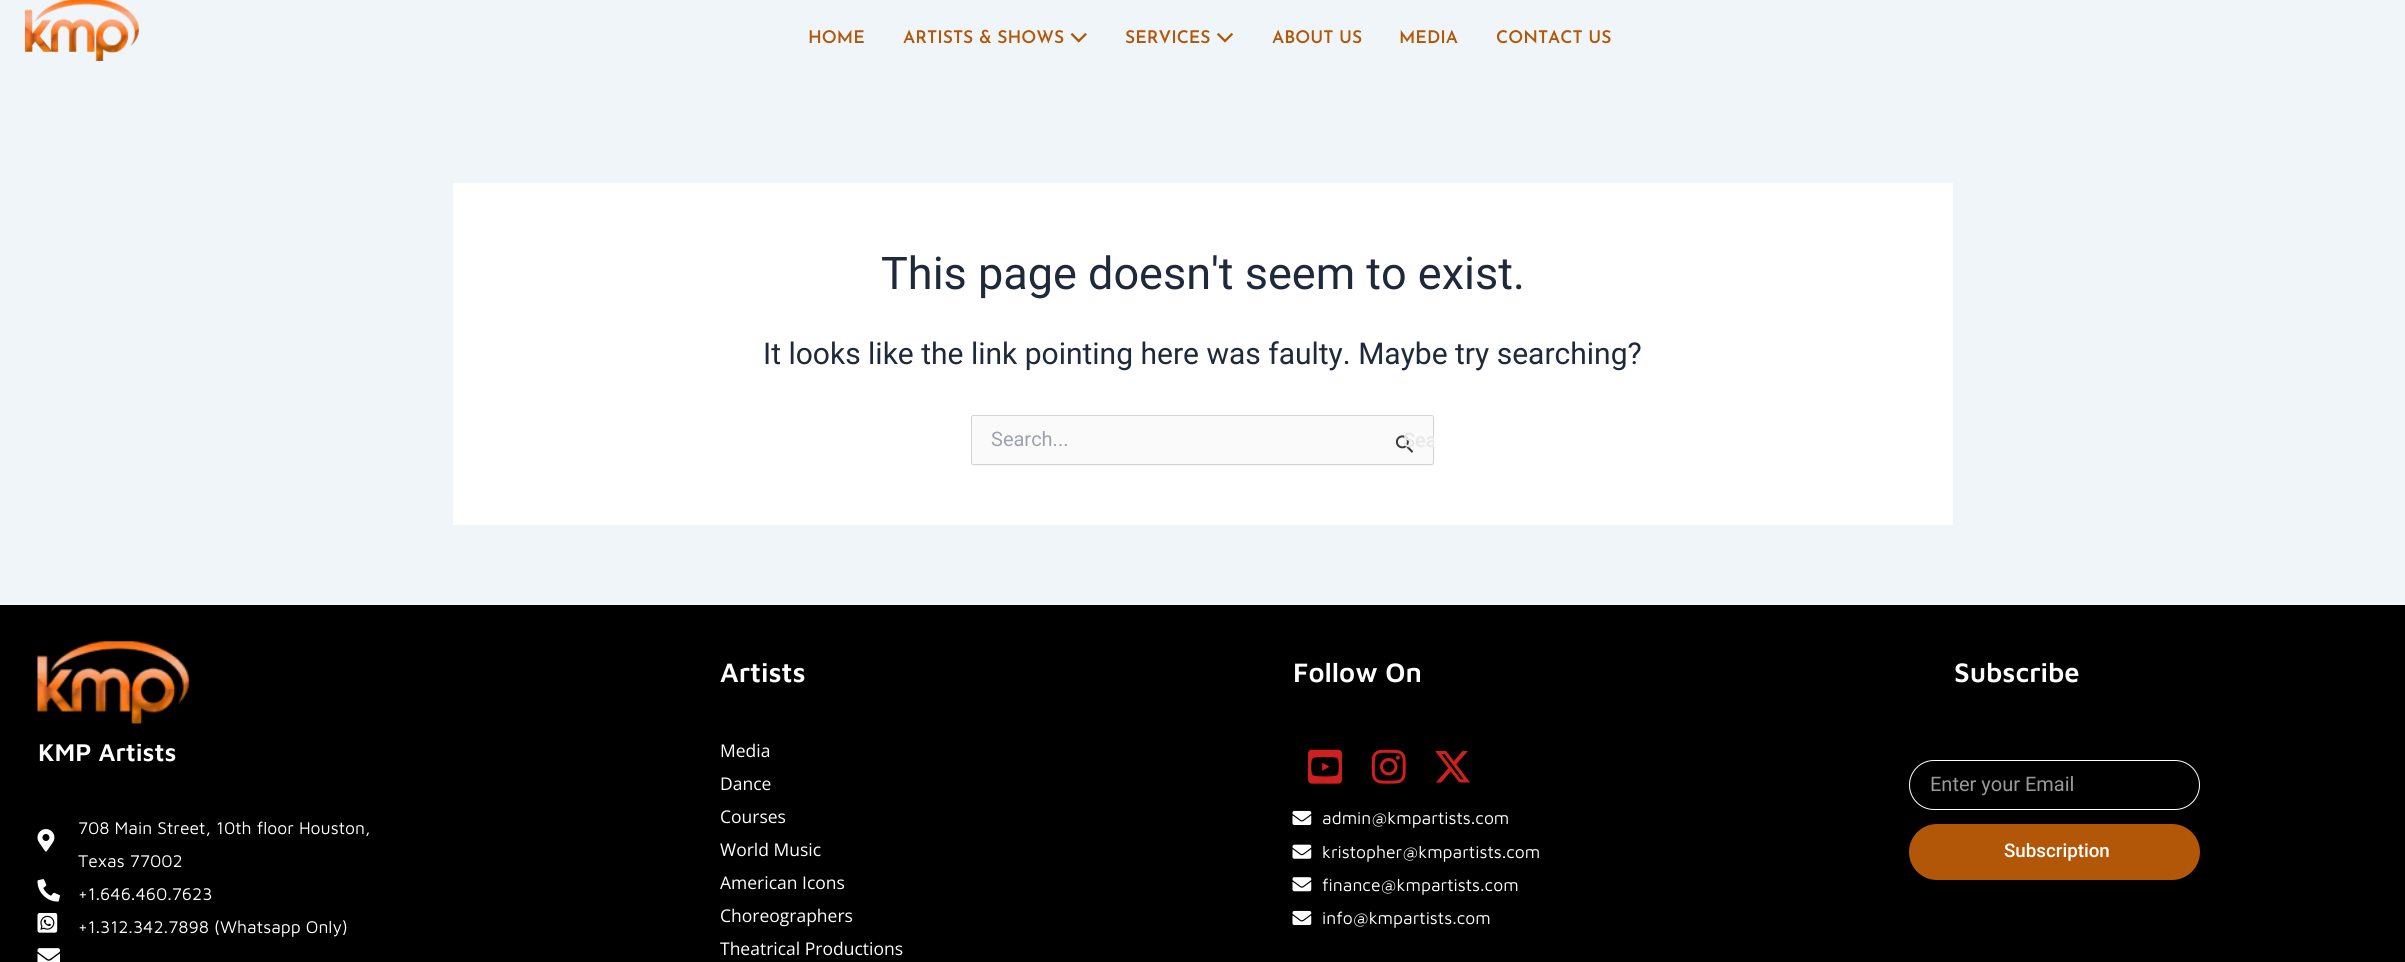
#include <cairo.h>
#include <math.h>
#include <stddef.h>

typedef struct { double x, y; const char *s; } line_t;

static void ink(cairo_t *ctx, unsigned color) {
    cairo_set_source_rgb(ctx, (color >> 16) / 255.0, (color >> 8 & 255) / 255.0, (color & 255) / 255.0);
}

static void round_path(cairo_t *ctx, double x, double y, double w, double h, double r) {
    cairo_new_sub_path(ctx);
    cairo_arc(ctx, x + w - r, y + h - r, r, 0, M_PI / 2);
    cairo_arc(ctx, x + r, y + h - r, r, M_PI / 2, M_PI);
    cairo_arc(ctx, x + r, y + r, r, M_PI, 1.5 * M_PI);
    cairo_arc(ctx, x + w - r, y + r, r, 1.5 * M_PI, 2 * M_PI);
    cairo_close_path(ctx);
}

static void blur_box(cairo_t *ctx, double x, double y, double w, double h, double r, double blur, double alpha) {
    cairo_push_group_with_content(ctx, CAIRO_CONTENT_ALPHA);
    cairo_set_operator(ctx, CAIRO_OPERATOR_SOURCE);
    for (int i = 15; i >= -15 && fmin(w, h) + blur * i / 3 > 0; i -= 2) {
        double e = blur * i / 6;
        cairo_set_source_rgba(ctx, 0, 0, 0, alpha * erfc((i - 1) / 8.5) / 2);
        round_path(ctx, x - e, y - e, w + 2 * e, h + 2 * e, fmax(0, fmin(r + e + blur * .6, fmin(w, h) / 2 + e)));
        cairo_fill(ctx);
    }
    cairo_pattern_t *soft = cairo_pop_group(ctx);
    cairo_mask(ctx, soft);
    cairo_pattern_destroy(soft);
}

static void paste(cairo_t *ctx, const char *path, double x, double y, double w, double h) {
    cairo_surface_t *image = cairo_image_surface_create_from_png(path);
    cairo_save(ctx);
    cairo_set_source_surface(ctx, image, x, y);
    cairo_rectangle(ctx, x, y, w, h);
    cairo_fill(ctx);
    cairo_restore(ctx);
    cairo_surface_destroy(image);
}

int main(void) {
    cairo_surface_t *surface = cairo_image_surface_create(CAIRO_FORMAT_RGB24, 2405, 962);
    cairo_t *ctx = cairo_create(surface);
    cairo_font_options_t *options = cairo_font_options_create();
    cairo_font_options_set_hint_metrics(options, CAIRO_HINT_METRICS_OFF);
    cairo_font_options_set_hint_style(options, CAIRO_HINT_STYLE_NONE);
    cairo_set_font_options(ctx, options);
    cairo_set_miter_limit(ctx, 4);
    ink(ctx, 0xF0F5FA);
    cairo_paint(ctx);
    paste(ctx, "media/1.png", 25, 0, 114, 61);
    cairo_select_font_face(ctx, "Josefin Sans SemiBold", CAIRO_FONT_SLANT_NORMAL, CAIRO_FONT_WEIGHT_NORMAL);
    cairo_set_font_size(ctx, 17.5);
    ink(ctx, 0xB15707);
    cairo_move_to(ctx, 808, 43);
    cairo_show_text(ctx, "HOME");
    cairo_move_to(ctx, 903, 43);
    cairo_show_text(ctx, "ARTISTS & SHOWS");
    paste(ctx, "media/2.png", 1070, 33, 17, 10);
    cairo_move_to(ctx, 1125, 43);
    cairo_show_text(ctx, "SERVICES");
    paste(ctx, "media/3.png", 1216, 33, 18, 10);
    {
        static const line_t items[] = {
            {1272, 43, "ABOUT US"},
            {1399, 43, "MEDIA"},
            {1496, 43, "CONTACT US"},
        };
        for (size_t i = 0; i < sizeof items / sizeof *items; i++) {
            cairo_move_to(ctx, items[i].x, items[i].y);
            cairo_show_text(ctx, items[i].s);
        }
    }
    ink(ctx, 0xFFFFFF);
    cairo_rectangle(ctx, 453, 183, 1500, 342);
    cairo_fill(ctx);
    cairo_select_font_face(ctx, "Roboto", CAIRO_FONT_SLANT_NORMAL, CAIRO_FONT_WEIGHT_NORMAL);
    cairo_set_font_size(ctx, 45);
    ink(ctx, 0x1E293B);
    cairo_move_to(ctx, 881, 289);
    cairo_show_text(ctx, "This page doesn't seem to exist.");
    cairo_set_font_size(ctx, 30);
    cairo_move_to(ctx, 763, 364);
    cairo_show_text(ctx, "It looks like the link pointing here was faulty. Maybe try searching?");
    ink(ctx, 0x000000);
    blur_box(ctx, 971, 416, 463, 50, 2.5, 1, 0.05);
    ink(ctx, 0xFAFAFA);
    round_path(ctx, 971.5, 415.5, 462, 49, 2);
    cairo_fill_preserve(ctx);
    ink(ctx, 0xD1D5DB);
    cairo_set_line_width(ctx, 1);
    cairo_stroke(ctx);
    cairo_set_font_size(ctx, 20);
    ink(ctx, 0x9CA3AF);
    cairo_move_to(ctx, 991, 446);
    cairo_show_text(ctx, "Search...");
    paste(ctx, "media/4.png", 1395, 435, 18, 18);
    cairo_save(ctx);
    round_path(ctx, 1378, 415, 56, 53, 2.5);
    cairo_clip(ctx);
    cairo_select_font_face(ctx, "Roboto Medium", CAIRO_FONT_SLANT_NORMAL, CAIRO_FONT_WEIGHT_NORMAL);
    ink(ctx, 0xE8E8E8);
    cairo_move_to(ctx, 1403, 447);
    cairo_show_text(ctx, "Sea");
    cairo_restore(ctx);
    ink(ctx, 0x000000);
    cairo_rectangle(ctx, 0, 605, 2405, 357);
    cairo_fill(ctx);
    paste(ctx, "media/5.png", 37, 641, 152, 83);
    cairo_select_font_face(ctx, "Maven Pro SemiBold", CAIRO_FONT_SLANT_NORMAL, CAIRO_FONT_WEIGHT_NORMAL);
    cairo_set_font_size(ctx, 25);
    ink(ctx, 0xFFFFFF);
    cairo_move_to(ctx, 38, 761);
    cairo_show_text(ctx, "KMP Artists");
    paste(ctx, "media/6.png", 37, 829, 18, 23);
    cairo_select_font_face(ctx, "Maven Pro", CAIRO_FONT_SLANT_NORMAL, CAIRO_FONT_WEIGHT_NORMAL);
    cairo_set_font_size(ctx, 17.5);
    cairo_move_to(ctx, 78, 834);
    cairo_show_text(ctx, "708 Main Street, 10th floor Houston,");
    cairo_move_to(ctx, 78, 867);
    cairo_show_text(ctx, "Texas 77002");
    paste(ctx, "media/7.png", 37, 879, 23, 23);
    cairo_move_to(ctx, 78, 900);
    cairo_show_text(ctx, "+1.646.460.7623");
    paste(ctx, "media/8.png", 37, 913, 21, 20);
    cairo_move_to(ctx, 78, 933);
    cairo_show_text(ctx, "+1.312.342.7898 (Whatsapp Only)");
    paste(ctx, "media/9.png", 37, 948, 23, 14);
    cairo_select_font_face(ctx, "Maven Pro SemiBold", CAIRO_FONT_SLANT_NORMAL, CAIRO_FONT_WEIGHT_NORMAL);
    cairo_set_font_size(ctx, 27.5);
    cairo_move_to(ctx, 720, 682);
    cairo_show_text(ctx, "Artists");
    cairo_select_font_face(ctx, "Open Sans", CAIRO_FONT_SLANT_NORMAL, CAIRO_FONT_WEIGHT_NORMAL);
    cairo_set_font_size(ctx, 17.5);
    {
        static const line_t items[] = {
            {720, 757, "Media"},
            {720, 790, "Dance"},
            {720, 823, "Courses"},
            {720, 856, "World Music"},
            {720, 889, "American Icons"},
            {720, 922, "Choreographers"},
            {720, 955, "Theatrical Productions"},
        };
        for (size_t i = 0; i < sizeof items / sizeof *items; i++) {
            cairo_move_to(ctx, items[i].x, items[i].y);
            cairo_show_text(ctx, items[i].s);
        }
    }
    cairo_select_font_face(ctx, "Maven Pro SemiBold", CAIRO_FONT_SLANT_NORMAL, CAIRO_FONT_WEIGHT_NORMAL);
    cairo_set_font_size(ctx, 27.5);
    cairo_move_to(ctx, 1293, 682);
    cairo_show_text(ctx, "Follow On");
    paste(ctx, "media/10.png", 1308, 749, 34, 35);
    paste(ctx, "media/11.png", 1371, 749, 35, 35);
    paste(ctx, "media/12.png", 1435, 751, 35, 32);
    paste(ctx, "media/13.png", 1292, 810, 20, 15);
    cairo_select_font_face(ctx, "Maven Pro", CAIRO_FONT_SLANT_NORMAL, CAIRO_FONT_WEIGHT_NORMAL);
    cairo_set_font_size(ctx, 17.5);
    cairo_move_to(ctx, 1322, 824);
    cairo_show_text(ctx, "admin@kmpartists.com");
    paste(ctx, "media/14.png", 1292, 844, 20, 15);
    cairo_move_to(ctx, 1322, 858);
    cairo_show_text(ctx, "kristopher@kmpartists.com");
    paste(ctx, "media/15.png", 1292, 877, 20, 15);
    cairo_move_to(ctx, 1322, 891);
    cairo_show_text(ctx, "finance@kmpartists.com");
    paste(ctx, "media/13.png", 1292, 910, 20, 15);
    cairo_move_to(ctx, 1322, 924);
    cairo_show_text(ctx, "info@kmpartists.com");
    cairo_select_font_face(ctx, "Maven Pro SemiBold", CAIRO_FONT_SLANT_NORMAL, CAIRO_FONT_WEIGHT_NORMAL);
    cairo_set_font_size(ctx, 27.5);
    cairo_move_to(ctx, 1954, 682);
    cairo_show_text(ctx, "Subscribe");
    round_path(ctx, 1909.5, 760.5, 290, 49, 24.5);
    cairo_stroke(ctx);
    cairo_select_font_face(ctx, "Roboto", CAIRO_FONT_SLANT_NORMAL, CAIRO_FONT_WEIGHT_NORMAL);
    cairo_set_font_size(ctx, 20);
    ink(ctx, 0x999999);
    cairo_move_to(ctx, 1930, 791);
    cairo_show_text(ctx, "Enter your Email");
    ink(ctx, 0xB15707);
    round_path(ctx, 1909, 824, 291, 56, 28);
    cairo_fill(ctx);
    cairo_select_font_face(ctx, "Roboto Medium", CAIRO_FONT_SLANT_NORMAL, CAIRO_FONT_WEIGHT_NORMAL);
    cairo_set_font_size(ctx, 18.75);
    ink(ctx, 0xFFFFFF);
    cairo_move_to(ctx, 2004, 857);
    cairo_show_text(ctx, "Subscription");
    cairo_surface_write_to_png(surface, "image.png");
    cairo_font_options_destroy(options);
    cairo_destroy(ctx);
    cairo_surface_destroy(surface);
    return 0;
}
